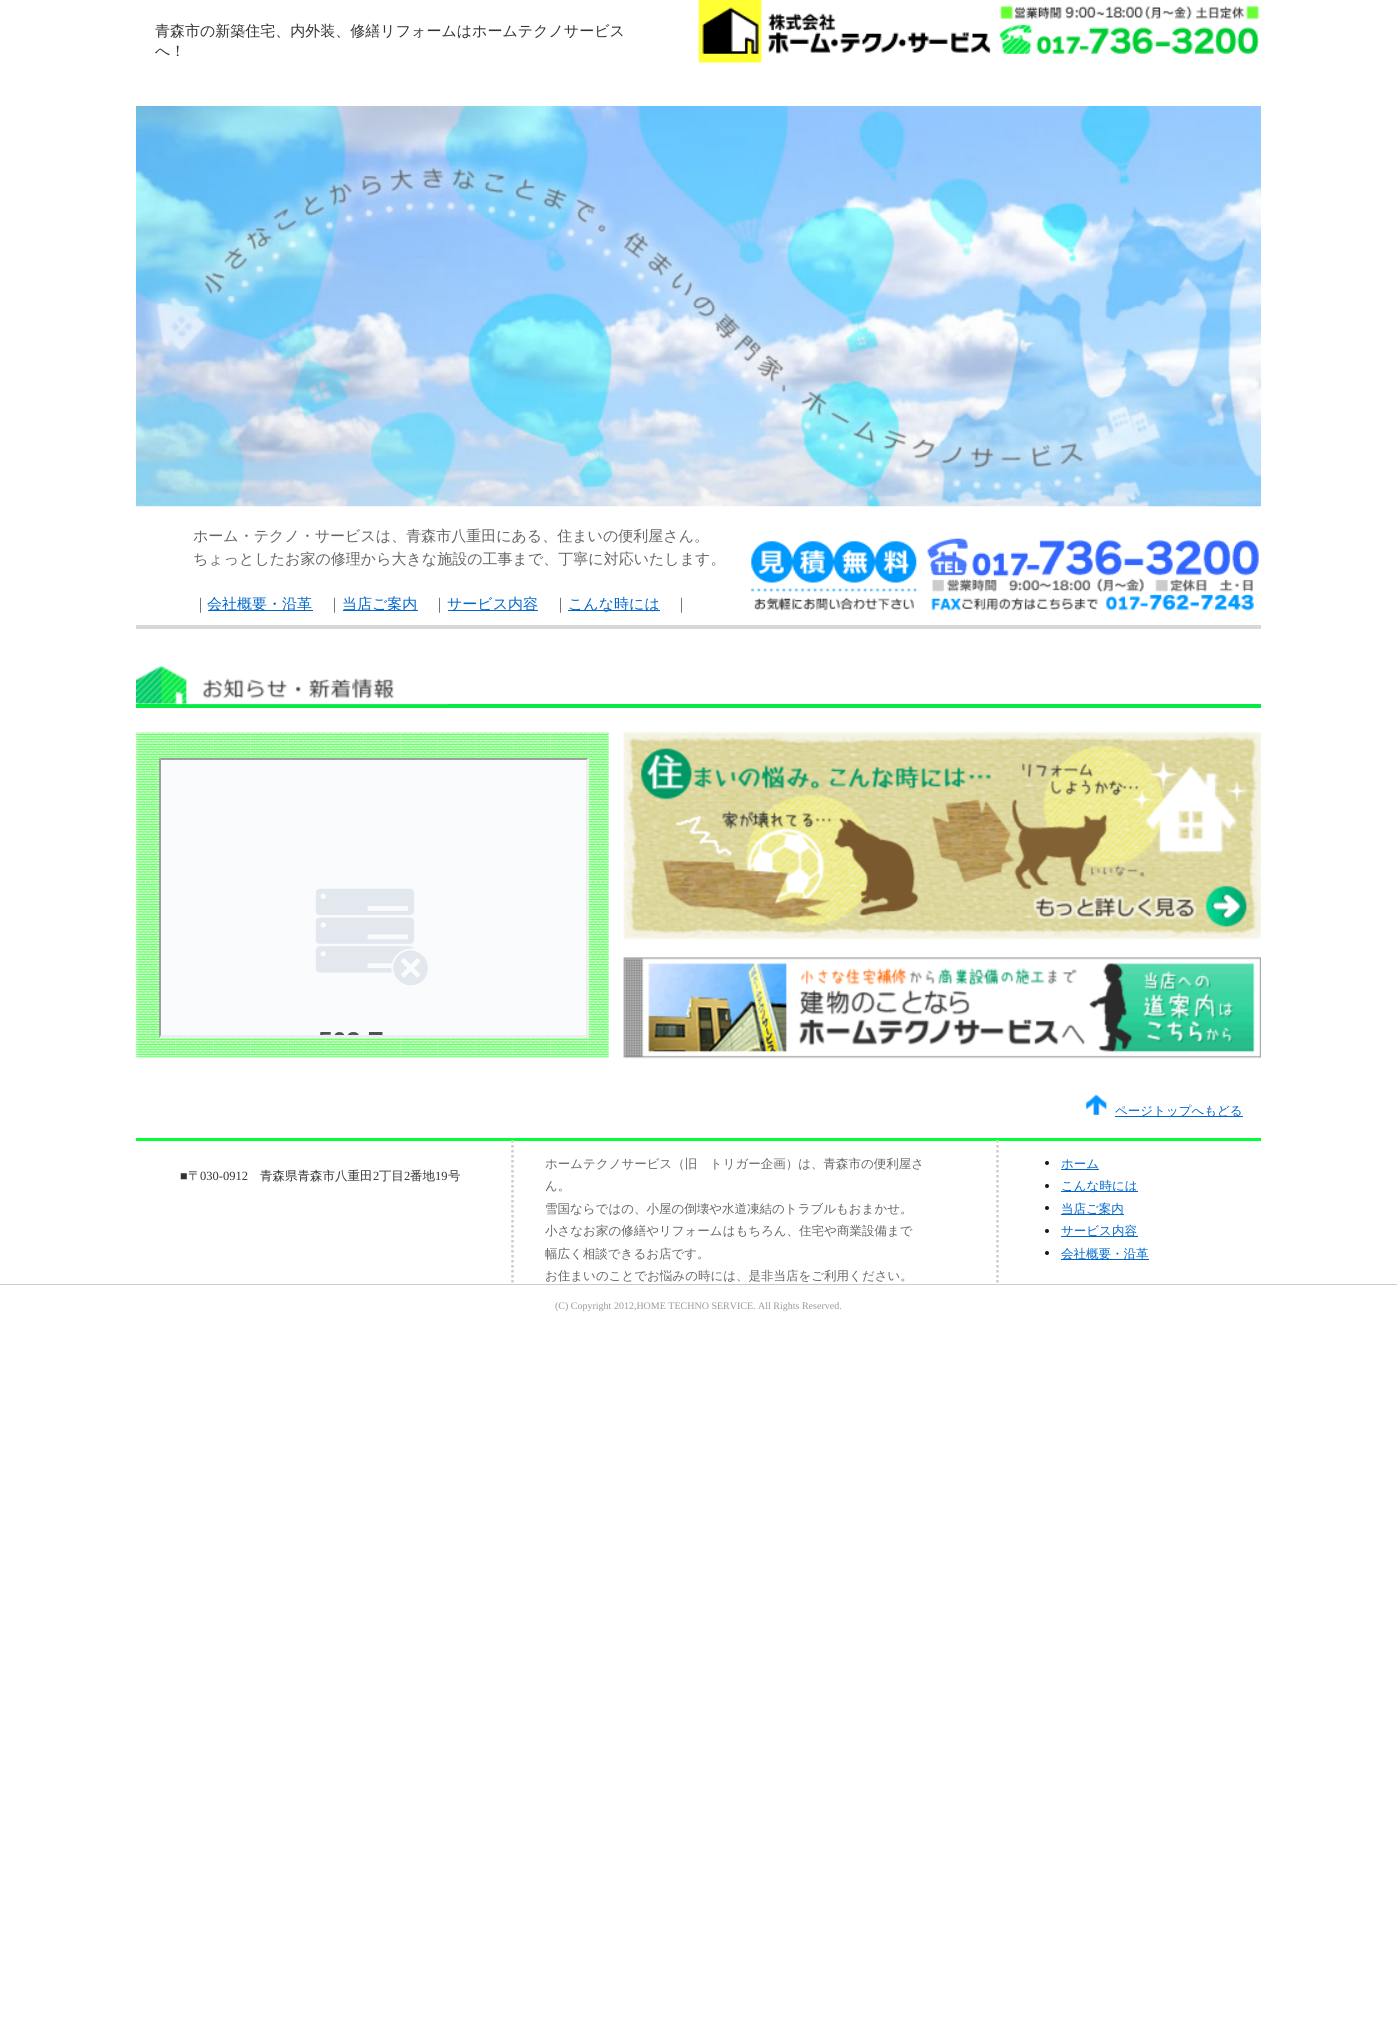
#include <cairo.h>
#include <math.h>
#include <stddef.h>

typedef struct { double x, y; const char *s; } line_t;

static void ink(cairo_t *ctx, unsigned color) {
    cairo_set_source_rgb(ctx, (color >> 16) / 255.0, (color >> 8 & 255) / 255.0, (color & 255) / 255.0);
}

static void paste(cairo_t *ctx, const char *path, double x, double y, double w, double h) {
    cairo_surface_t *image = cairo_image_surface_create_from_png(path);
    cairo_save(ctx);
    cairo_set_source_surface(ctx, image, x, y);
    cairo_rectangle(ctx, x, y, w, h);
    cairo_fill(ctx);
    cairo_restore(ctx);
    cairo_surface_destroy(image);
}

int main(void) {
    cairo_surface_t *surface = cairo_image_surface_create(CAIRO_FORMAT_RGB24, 1397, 2019);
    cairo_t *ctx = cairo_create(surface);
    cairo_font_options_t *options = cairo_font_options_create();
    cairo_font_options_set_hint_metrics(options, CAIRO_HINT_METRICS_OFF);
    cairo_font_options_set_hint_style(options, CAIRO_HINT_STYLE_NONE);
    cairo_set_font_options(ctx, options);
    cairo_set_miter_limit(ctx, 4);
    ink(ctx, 0xFFFFFF);
    cairo_paint(ctx);
    cairo_select_font_face(ctx, "WenQuanYi Zen Hei Medium", CAIRO_FONT_SLANT_NORMAL, CAIRO_FONT_WEIGHT_NORMAL);
    cairo_set_font_size(ctx, 15);
    ink(ctx, 0x333333);
    cairo_move_to(ctx, 155, 36);
    cairo_show_text(ctx, "青森市の新築住宅、内外装、修繕リフォームはホームテクノサービス");
    cairo_move_to(ctx, 155, 56);
    cairo_show_text(ctx, "へ！");
    paste(ctx, "media/1.png", 698, 0, 561, 63);
    paste(ctx, "media/2.png", 136, 106, 1125, 401);
    ink(ctx, 0xD7D7D7);
    cairo_rectangle(ctx, 136, 625, 1125, 4);
    cairo_fill(ctx);
    ink(ctx, 0x666666);
    {
        static const line_t items[] = {
            {193, 541, "ホーム・テクノ・サービスは、青森市八重田にある、住まいの便利屋さん。"},
            {193, 564, "ちょっとしたお家の修理から大きな施設の工事まで、丁寧に対応いたします。"},
            {193, 609, "｜"},
        };
        for (size_t i = 0; i < sizeof items / sizeof *items; i++) {
            cairo_move_to(ctx, items[i].x, items[i].y);
            cairo_show_text(ctx, items[i].s);
        }
    }
    ink(ctx, 0x0066CC);
    cairo_rectangle(ctx, 208, 610, 105, 1);
    cairo_fill(ctx);
    cairo_move_to(ctx, 207, 609);
    cairo_show_text(ctx, "会社概要・沿革");
    ink(ctx, 0x666666);
    cairo_move_to(ctx, 327, 609);
    cairo_show_text(ctx, "｜");
    ink(ctx, 0x0066CC);
    cairo_rectangle(ctx, 343, 610, 75, 1);
    cairo_fill(ctx);
    cairo_move_to(ctx, 342, 609);
    cairo_show_text(ctx, "当店ご案内");
    ink(ctx, 0x666666);
    cairo_move_to(ctx, 432, 609);
    cairo_show_text(ctx, "｜");
    ink(ctx, 0x0066CC);
    cairo_rectangle(ctx, 448, 610, 90, 1);
    cairo_fill(ctx);
    cairo_move_to(ctx, 447, 609);
    cairo_show_text(ctx, "サービス内容");
    ink(ctx, 0x666666);
    cairo_move_to(ctx, 553, 609);
    cairo_show_text(ctx, "｜");
    ink(ctx, 0x0066CC);
    cairo_rectangle(ctx, 568, 610, 92, 1);
    cairo_fill(ctx);
    cairo_move_to(ctx, 568, 609);
    cairo_show_text(ctx, "こんな時には");
    ink(ctx, 0x666666);
    cairo_move_to(ctx, 674, 609);
    cairo_show_text(ctx, "｜");
    paste(ctx, "media/3.png", 751, 538, 508, 73);
    ink(ctx, 0x06EA45);
    cairo_rectangle(ctx, 136, 704, 1125, 4);
    cairo_fill(ctx);
    paste(ctx, "media/4.png", 136, 666, 313, 39);
    paste(ctx, "media/5.png", 136, 732, 473, 326);
    ink(ctx, 0x9F9F9F);
    cairo_new_path(ctx);
    cairo_move_to(ctx, 159, 758);
    cairo_line_to(ctx, 589, 758);
    cairo_line_to(ctx, 586, 760);
    cairo_line_to(ctx, 161, 760);
    cairo_close_path(ctx);
    cairo_fill(ctx);
    ink(ctx, 0xEEEEEE);
    cairo_new_path(ctx);
    cairo_move_to(ctx, 589, 758);
    cairo_line_to(ctx, 589, 1038);
    cairo_line_to(ctx, 586, 1035);
    cairo_line_to(ctx, 586, 760);
    cairo_close_path(ctx);
    cairo_fill(ctx);
    cairo_new_path(ctx);
    cairo_move_to(ctx, 589, 1038);
    cairo_line_to(ctx, 159, 1038);
    cairo_line_to(ctx, 161, 1035);
    cairo_line_to(ctx, 586, 1035);
    cairo_close_path(ctx);
    cairo_fill(ctx);
    ink(ctx, 0x9F9F9F);
    cairo_new_path(ctx);
    cairo_move_to(ctx, 159, 1038);
    cairo_line_to(ctx, 159, 758);
    cairo_line_to(ctx, 161, 760);
    cairo_line_to(ctx, 161, 1035);
    cairo_close_path(ctx);
    cairo_fill(ctx);
    paste(ctx, "media/6.png", 161, 760, 425, 275);
    paste(ctx, "media/7.png", 623, 732, 638, 208);
    paste(ctx, "media/8.png", 623, 957, 638, 102);
    paste(ctx, "media/9.png", 1086, 1094, 22, 21);
    ink(ctx, 0x0066CC);
    cairo_rectangle(ctx, 1115, 1116, 128, 1);
    cairo_fill(ctx);
    cairo_set_font_size(ctx, 12.5);
    cairo_move_to(ctx, 1115, 1115);
    cairo_show_text(ctx, "ページトップへもどる");
    ink(ctx, 0x00FF33);
    cairo_rectangle(ctx, 136, 1138, 1125, 3);
    cairo_fill(ctx);
    cairo_select_font_face(ctx, "Liberation Serif", CAIRO_FONT_SLANT_NORMAL, CAIRO_FONT_WEIGHT_NORMAL);
    ink(ctx, 0x333333);
    cairo_move_to(ctx, 180, 1180);
    cairo_show_text(ctx, "■");
    cairo_select_font_face(ctx, "WenQuanYi Zen Hei Medium", CAIRO_FONT_SLANT_NORMAL, CAIRO_FONT_WEIGHT_NORMAL);
    cairo_move_to(ctx, 188, 1180);
    cairo_show_text(ctx, "〒");
    cairo_select_font_face(ctx, "Liberation Serif", CAIRO_FONT_SLANT_NORMAL, CAIRO_FONT_WEIGHT_NORMAL);
    cairo_move_to(ctx, 200, 1180);
    cairo_show_text(ctx, "030-0912");
    cairo_select_font_face(ctx, "WenQuanYi Zen Hei Medium", CAIRO_FONT_SLANT_NORMAL, CAIRO_FONT_WEIGHT_NORMAL);
    cairo_move_to(ctx, 260, 1180);
    cairo_show_text(ctx, "青森県青森市八重田");
    cairo_select_font_face(ctx, "Liberation Serif", CAIRO_FONT_SLANT_NORMAL, CAIRO_FONT_WEIGHT_NORMAL);
    cairo_move_to(ctx, 373, 1180);
    cairo_show_text(ctx, "2");
    cairo_select_font_face(ctx, "WenQuanYi Zen Hei Medium", CAIRO_FONT_SLANT_NORMAL, CAIRO_FONT_WEIGHT_NORMAL);
    cairo_move_to(ctx, 379, 1180);
    cairo_show_text(ctx, "丁目");
    cairo_select_font_face(ctx, "Liberation Serif", CAIRO_FONT_SLANT_NORMAL, CAIRO_FONT_WEIGHT_NORMAL);
    cairo_move_to(ctx, 404, 1180);
    cairo_show_text(ctx, "2");
    cairo_select_font_face(ctx, "WenQuanYi Zen Hei Medium", CAIRO_FONT_SLANT_NORMAL, CAIRO_FONT_WEIGHT_NORMAL);
    cairo_move_to(ctx, 410, 1180);
    cairo_show_text(ctx, "番地");
    cairo_select_font_face(ctx, "Liberation Serif", CAIRO_FONT_SLANT_NORMAL, CAIRO_FONT_WEIGHT_NORMAL);
    cairo_move_to(ctx, 435, 1180);
    cairo_show_text(ctx, "19");
    cairo_select_font_face(ctx, "WenQuanYi Zen Hei Medium", CAIRO_FONT_SLANT_NORMAL, CAIRO_FONT_WEIGHT_NORMAL);
    cairo_move_to(ctx, 448, 1180);
    cairo_show_text(ctx, "号");
    cairo_new_path(ctx);
    cairo_move_to(ctx, 512.5, 1140);
    cairo_line_to(ctx, 512.5, 1284);
    ink(ctx, 0xCCCCCC);
    cairo_set_line_width(ctx, 2.5);
    cairo_set_dash(ctx, (double[]){2.5, 2.5}, 2, 0);
    cairo_stroke(ctx);
    ink(ctx, 0x666666);
    {
        static const line_t items[] = {
            {545, 1168, "ホームテクノサービス（旧　トリガー企画）は、青森市の便利屋さ"},
            {545, 1190, "ん。"},
            {545, 1213, "雪国ならではの、小屋の倒壊や水道凍結のトラブルもおまかせ。"},
            {545, 1235, "小さなお家の修繕やリフォームはもちろん、住宅や商業設備まで"},
            {545, 1258, "幅広く相談できるお店です。"},
            {545, 1280, "お住まいのことでお悩みの時には、是非当店をご利用ください。"},
        };
        for (size_t i = 0; i < sizeof items / sizeof *items; i++) {
            cairo_move_to(ctx, items[i].x, items[i].y);
            cairo_show_text(ctx, items[i].s);
        }
    }
    cairo_new_path(ctx);
    cairo_move_to(ctx, 997.5, 1140);
    cairo_line_to(ctx, 997.5, 1284);
    ink(ctx, 0xCCCCCC);
    cairo_stroke(ctx);
    ink(ctx, 0x1E1615);
    cairo_arc(ctx, 1047, 1163, 2, 0, 2 * M_PI);
    cairo_fill(ctx);
    ink(ctx, 0x0066CC);
    cairo_rectangle(ctx, 1061, 1169, 38, 1);
    cairo_fill(ctx);
    cairo_move_to(ctx, 1061, 1168);
    cairo_show_text(ctx, "ホーム");
    ink(ctx, 0x1E1615);
    cairo_new_path(ctx);
    cairo_arc(ctx, 1047, 1186, 2, 0, 2 * M_PI);
    cairo_fill(ctx);
    ink(ctx, 0x0066CC);
    cairo_rectangle(ctx, 1061, 1191, 77, 1);
    cairo_fill(ctx);
    cairo_move_to(ctx, 1061, 1190);
    cairo_show_text(ctx, "こんな時には");
    ink(ctx, 0x1E1615);
    cairo_new_path(ctx);
    cairo_arc(ctx, 1047, 1208, 2, 0, 2 * M_PI);
    cairo_fill(ctx);
    ink(ctx, 0x0066CC);
    cairo_rectangle(ctx, 1061, 1214, 63, 1);
    cairo_fill(ctx);
    cairo_move_to(ctx, 1061, 1213);
    cairo_show_text(ctx, "当店ご案内");
    ink(ctx, 0x1E1615);
    cairo_new_path(ctx);
    cairo_arc(ctx, 1047, 1231, 2, 0, 2 * M_PI);
    cairo_fill(ctx);
    ink(ctx, 0x0066CC);
    cairo_rectangle(ctx, 1061, 1236, 77, 1);
    cairo_fill(ctx);
    cairo_move_to(ctx, 1061, 1235);
    cairo_show_text(ctx, "サービス内容");
    ink(ctx, 0x1E1615);
    cairo_new_path(ctx);
    cairo_arc(ctx, 1047, 1253, 2, 0, 2 * M_PI);
    cairo_fill(ctx);
    ink(ctx, 0x0066CC);
    cairo_rectangle(ctx, 1061, 1259, 88, 1);
    cairo_fill(ctx);
    cairo_move_to(ctx, 1061, 1258);
    cairo_show_text(ctx, "会社概要・沿革");
    ink(ctx, 0xCCCCCC);
    cairo_rectangle(ctx, 0, 1284, 1397, 1);
    cairo_fill(ctx);
    cairo_select_font_face(ctx, "Liberation Serif", CAIRO_FONT_SLANT_NORMAL, CAIRO_FONT_WEIGHT_NORMAL);
    cairo_set_font_size(ctx, 10);
    ink(ctx, 0x999999);
    cairo_move_to(ctx, 555, 1309);
    cairo_show_text(ctx, "(C) Copyright 2012,HOME TECHNO SERVICE. All Rights Reserved.");
    cairo_surface_write_to_png(surface, "image.png");
    cairo_font_options_destroy(options);
    cairo_destroy(ctx);
    cairo_surface_destroy(surface);
    return 0;
}
